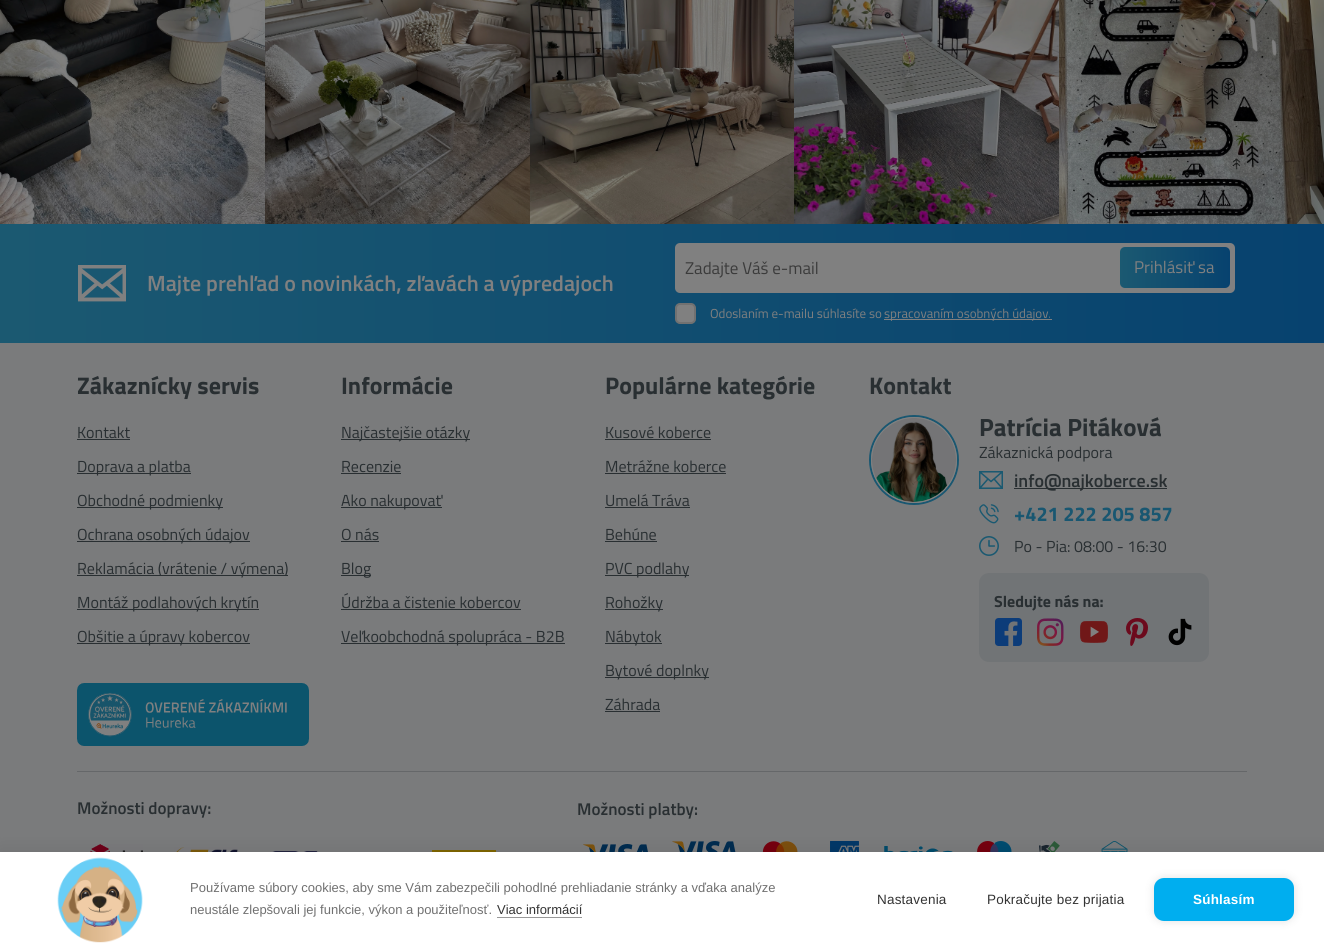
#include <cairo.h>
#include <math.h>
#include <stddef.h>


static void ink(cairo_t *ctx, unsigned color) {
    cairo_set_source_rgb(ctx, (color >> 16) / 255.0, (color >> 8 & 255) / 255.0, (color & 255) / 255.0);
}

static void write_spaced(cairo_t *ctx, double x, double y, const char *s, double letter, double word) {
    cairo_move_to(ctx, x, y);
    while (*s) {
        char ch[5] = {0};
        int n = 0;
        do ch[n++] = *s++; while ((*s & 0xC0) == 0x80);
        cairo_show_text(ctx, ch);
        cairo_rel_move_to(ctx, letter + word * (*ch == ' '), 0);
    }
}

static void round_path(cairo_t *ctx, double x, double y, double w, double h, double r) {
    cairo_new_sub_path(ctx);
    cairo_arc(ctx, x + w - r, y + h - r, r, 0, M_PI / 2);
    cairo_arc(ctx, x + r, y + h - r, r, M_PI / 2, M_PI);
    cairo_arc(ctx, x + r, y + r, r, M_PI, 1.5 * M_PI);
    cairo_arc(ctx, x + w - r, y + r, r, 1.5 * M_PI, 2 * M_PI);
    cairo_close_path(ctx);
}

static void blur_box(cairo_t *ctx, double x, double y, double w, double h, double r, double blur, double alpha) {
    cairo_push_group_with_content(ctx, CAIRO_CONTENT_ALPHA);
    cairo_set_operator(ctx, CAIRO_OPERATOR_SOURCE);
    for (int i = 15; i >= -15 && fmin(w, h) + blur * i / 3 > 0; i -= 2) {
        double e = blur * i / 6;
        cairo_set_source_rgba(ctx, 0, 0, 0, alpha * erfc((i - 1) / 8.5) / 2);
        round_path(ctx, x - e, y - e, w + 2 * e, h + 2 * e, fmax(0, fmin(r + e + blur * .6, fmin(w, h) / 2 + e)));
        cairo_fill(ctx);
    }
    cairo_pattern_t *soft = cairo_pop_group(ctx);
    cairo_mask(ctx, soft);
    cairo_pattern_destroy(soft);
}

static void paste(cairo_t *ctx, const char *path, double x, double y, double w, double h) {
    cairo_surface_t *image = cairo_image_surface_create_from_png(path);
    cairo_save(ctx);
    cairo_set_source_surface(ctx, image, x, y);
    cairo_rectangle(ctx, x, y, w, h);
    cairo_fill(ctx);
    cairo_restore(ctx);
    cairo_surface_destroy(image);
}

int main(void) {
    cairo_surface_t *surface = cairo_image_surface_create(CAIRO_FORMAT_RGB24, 1324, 946);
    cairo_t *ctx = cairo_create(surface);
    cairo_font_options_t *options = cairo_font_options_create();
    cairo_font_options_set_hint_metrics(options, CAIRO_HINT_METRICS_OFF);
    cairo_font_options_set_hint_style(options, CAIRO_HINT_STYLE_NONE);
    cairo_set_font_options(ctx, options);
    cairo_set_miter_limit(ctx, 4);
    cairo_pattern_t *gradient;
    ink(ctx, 0x7A7B7C);
    cairo_paint(ctx);
    paste(ctx, "media/1.png", 0, 0, 265, 224);
    paste(ctx, "media/2.png", 265, 0, 265, 224);
    paste(ctx, "media/3.png", 530, 0, 264, 224);
    paste(ctx, "media/4.png", 794, 0, 265, 224);
    paste(ctx, "media/5.png", 1059, 0, 265, 224);
    gradient = cairo_pattern_create_linear(0, 284, 1324, 283);
    cairo_pattern_add_color_stop_rgba(gradient, 0, 0.106, 0.349, 0.443, 1);
    cairo_pattern_add_color_stop_rgba(gradient, 1, 0.027, 0.259, 0.435, 1);
    cairo_set_source(ctx, gradient);
    cairo_pattern_destroy(gradient);
    cairo_rectangle(ctx, 0, 224, 1324, 119);
    cairo_fill(ctx);
    paste(ctx, "media/6.png", 78, 265, 48, 37);
    cairo_select_font_face(ctx, "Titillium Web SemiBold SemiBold", CAIRO_FONT_SLANT_NORMAL, CAIRO_FONT_WEIGHT_NORMAL);
    cairo_set_font_size(ctx, 22);
    ink(ctx, 0x808080);
    cairo_move_to(ctx, 147, 291);
    cairo_show_text(ctx, "Majte prehľad o novinkách, zľavách a výpredajoch");
    round_path(ctx, 675, 243, 560, 50, 5);
    cairo_fill(ctx);
    cairo_select_font_face(ctx, "Titillium Web", CAIRO_FONT_SLANT_NORMAL, CAIRO_FONT_WEIGHT_NORMAL);
    cairo_set_font_size(ctx, 17);
    ink(ctx, 0x3B3B3B);
    cairo_move_to(ctx, 685, 274);
    cairo_show_text(ctx, "Zadajte Váš e-mail");
    gradient = cairo_pattern_create_linear(1120, 268, 1230, 268);
    cairo_pattern_add_color_stop_rgba(gradient, 0, 0.106, 0.349, 0.443, 1);
    cairo_pattern_add_color_stop_rgba(gradient, 1, 0.027, 0.259, 0.435, 1);
    cairo_set_source(ctx, gradient);
    cairo_pattern_destroy(gradient);
    round_path(ctx, 1120, 247, 110, 41, 5);
    cairo_fill(ctx);
    ink(ctx, 0x808080);
    cairo_move_to(ctx, 1134, 273);
    cairo_show_text(ctx, "Prihlásiť sa");
    round_path(ctx, 676, 304, 19, 19, 4);
    cairo_fill_preserve(ctx);
    ink(ctx, 0x717171);
    cairo_stroke(ctx);
    cairo_set_font_size(ctx, 13);
    ink(ctx, 0x808080);
    cairo_move_to(ctx, 710, 318);
    cairo_show_text(ctx, "Odoslaním e-mailu súhlasíte so");
    cairo_rectangle(ctx, 884, 319, 168, 1);
    cairo_fill(ctx);
    cairo_move_to(ctx, 884, 318);
    cairo_show_text(ctx, "spracovaním osobných údajov.");
    cairo_select_font_face(ctx, "Titillium Web", CAIRO_FONT_SLANT_NORMAL, CAIRO_FONT_WEIGHT_BOLD);
    cairo_set_font_size(ctx, 24);
    ink(ctx, 0x292F32);
    cairo_move_to(ctx, 77, 394);
    cairo_show_text(ctx, "Zákaznícky servis");
    cairo_select_font_face(ctx, "Titillium Web", CAIRO_FONT_SLANT_NORMAL, CAIRO_FONT_WEIGHT_NORMAL);
    cairo_set_font_size(ctx, 16);
    cairo_move_to(ctx, 77, 438);
    cairo_show_text(ctx, "Kontakt");
    cairo_rectangle(ctx, 77, 439, 53, 1);
    cairo_fill(ctx);
    cairo_rectangle(ctx, 77, 473, 114, 1);
    cairo_fill(ctx);
    cairo_move_to(ctx, 77, 472);
    cairo_show_text(ctx, "Doprava a platba");
    cairo_rectangle(ctx, 77, 507, 146, 1);
    cairo_fill(ctx);
    cairo_move_to(ctx, 77, 506);
    cairo_show_text(ctx, "Obchodné podmienky");
    cairo_rectangle(ctx, 77, 541, 173, 1);
    cairo_fill(ctx);
    cairo_move_to(ctx, 77, 540);
    cairo_show_text(ctx, "Ochrana osobných údajov");
    cairo_rectangle(ctx, 77, 575, 211, 1);
    cairo_fill(ctx);
    cairo_move_to(ctx, 77, 574);
    cairo_show_text(ctx, "Reklamácia (vrátenie / výmena)");
    cairo_rectangle(ctx, 77, 609, 182, 1);
    cairo_fill(ctx);
    cairo_move_to(ctx, 77, 608);
    cairo_show_text(ctx, "Montáž podlahových krytín");
    cairo_rectangle(ctx, 77, 643, 173, 1);
    cairo_fill(ctx);
    cairo_move_to(ctx, 77, 642);
    cairo_show_text(ctx, "Obšitie a úpravy kobercov");
    paste(ctx, "media/7.png", 77, 683, 232, 63);
    cairo_select_font_face(ctx, "Titillium Web", CAIRO_FONT_SLANT_NORMAL, CAIRO_FONT_WEIGHT_BOLD);
    cairo_set_font_size(ctx, 24);
    cairo_move_to(ctx, 341, 394);
    cairo_show_text(ctx, "Informácie");
    cairo_rectangle(ctx, 341, 439, 129, 1);
    cairo_fill(ctx);
    cairo_select_font_face(ctx, "Titillium Web", CAIRO_FONT_SLANT_NORMAL, CAIRO_FONT_WEIGHT_NORMAL);
    cairo_set_font_size(ctx, 16);
    cairo_move_to(ctx, 341, 438);
    cairo_show_text(ctx, "Najčastejšie otázky");
    cairo_move_to(ctx, 341, 472);
    cairo_show_text(ctx, "Recenzie");
    cairo_rectangle(ctx, 341, 473, 60, 1);
    cairo_fill(ctx);
    cairo_rectangle(ctx, 341, 507, 101, 1);
    cairo_fill(ctx);
    cairo_move_to(ctx, 341, 506);
    cairo_show_text(ctx, "Ako nakupovať");
    cairo_move_to(ctx, 341, 540);
    cairo_show_text(ctx, "O nás");
    cairo_rectangle(ctx, 341, 541, 38, 1);
    cairo_fill(ctx);
    cairo_rectangle(ctx, 341, 575, 30, 1);
    cairo_fill(ctx);
    cairo_move_to(ctx, 341, 574);
    cairo_show_text(ctx, "Blog");
    cairo_move_to(ctx, 341, 608);
    cairo_show_text(ctx, "Údržba a čistenie kobercov");
    cairo_rectangle(ctx, 341, 609, 180, 1);
    cairo_fill(ctx);
    cairo_rectangle(ctx, 341, 643, 224, 1);
    cairo_fill(ctx);
    cairo_move_to(ctx, 341, 642);
    cairo_show_text(ctx, "Veľkoobchodná spolupráca - B2B");
    cairo_select_font_face(ctx, "Titillium Web", CAIRO_FONT_SLANT_NORMAL, CAIRO_FONT_WEIGHT_BOLD);
    cairo_set_font_size(ctx, 24);
    cairo_move_to(ctx, 605, 394);
    cairo_show_text(ctx, "Populárne kategórie");
    cairo_select_font_face(ctx, "Titillium Web", CAIRO_FONT_SLANT_NORMAL, CAIRO_FONT_WEIGHT_NORMAL);
    cairo_set_font_size(ctx, 16);
    cairo_move_to(ctx, 605, 438);
    cairo_show_text(ctx, "Kusové koberce");
    cairo_rectangle(ctx, 605, 439, 106, 1);
    cairo_fill(ctx);
    cairo_move_to(ctx, 605, 472);
    cairo_show_text(ctx, "Metrážne koberce");
    cairo_rectangle(ctx, 605, 473, 121, 1);
    cairo_fill(ctx);
    cairo_move_to(ctx, 605, 506);
    cairo_show_text(ctx, "Umelá Tráva");
    cairo_rectangle(ctx, 605, 507, 85, 1);
    cairo_fill(ctx);
    cairo_move_to(ctx, 605, 540);
    cairo_show_text(ctx, "Behúne");
    cairo_rectangle(ctx, 605, 541, 52, 1);
    cairo_fill(ctx);
    cairo_rectangle(ctx, 605, 575, 84, 1);
    cairo_fill(ctx);
    cairo_move_to(ctx, 605, 574);
    cairo_show_text(ctx, "PVC podlahy");
    cairo_rectangle(ctx, 605, 609, 58, 1);
    cairo_fill(ctx);
    cairo_move_to(ctx, 605, 608);
    cairo_show_text(ctx, "Rohožky");
    cairo_rectangle(ctx, 605, 643, 57, 1);
    cairo_fill(ctx);
    cairo_move_to(ctx, 605, 642);
    cairo_show_text(ctx, "Nábytok");
    cairo_rectangle(ctx, 605, 677, 104, 1);
    cairo_fill(ctx);
    cairo_move_to(ctx, 605, 676);
    cairo_show_text(ctx, "Bytové doplnky");
    cairo_move_to(ctx, 605, 710);
    cairo_show_text(ctx, "Záhrada");
    cairo_rectangle(ctx, 605, 711, 55, 1);
    cairo_fill(ctx);
    cairo_select_font_face(ctx, "Titillium Web", CAIRO_FONT_SLANT_NORMAL, CAIRO_FONT_WEIGHT_BOLD);
    cairo_set_font_size(ctx, 24);
    cairo_move_to(ctx, 869, 394);
    cairo_show_text(ctx, "Kontakt");
    cairo_new_path(ctx);
    cairo_arc(ctx, 914, 460, 44, 0, 2 * M_PI);
    ink(ctx, 0x195771);
    cairo_stroke(ctx);
    cairo_arc(ctx, 914, 460, 42.5, 0, 2 * M_PI);
    ink(ctx, 0x808080);
    cairo_set_line_width(ctx, 1);
    cairo_stroke(ctx);
    paste(ctx, "media/8.png", 872, 418, 84, 84);
    cairo_set_font_size(ctx, 25);
    ink(ctx, 0x292F32);
    cairo_move_to(ctx, 979, 436);
    cairo_show_text(ctx, "Patrícia Pitáková");
    cairo_select_font_face(ctx, "Titillium Web", CAIRO_FONT_SLANT_NORMAL, CAIRO_FONT_WEIGHT_NORMAL);
    cairo_set_font_size(ctx, 16);
    cairo_move_to(ctx, 979, 458);
    cairo_show_text(ctx, "Zákaznická podpora");
    paste(ctx, "media/9.png", 979, 471, 24, 18);
    cairo_rectangle(ctx, 1014, 488, 153, 1);
    cairo_fill(ctx);
    cairo_select_font_face(ctx, "Titillium Web SemiBold SemiBold", CAIRO_FONT_SLANT_NORMAL, CAIRO_FONT_WEIGHT_NORMAL);
    cairo_set_font_size(ctx, 18);
    cairo_move_to(ctx, 1014, 487);
    cairo_show_text(ctx, "info@najkoberce.sk");
    paste(ctx, "media/10.png", 979, 504, 20, 20);
    cairo_select_font_face(ctx, "Titillium Web", CAIRO_FONT_SLANT_NORMAL, CAIRO_FONT_WEIGHT_BOLD);
    cairo_set_font_size(ctx, 20);
    ink(ctx, 0x195771);
    cairo_move_to(ctx, 1014, 521);
    cairo_show_text(ctx, "+421 222 205 857");
    paste(ctx, "media/11.png", 979, 536, 20, 20);
    cairo_select_font_face(ctx, "Titillium Web", CAIRO_FONT_SLANT_NORMAL, CAIRO_FONT_WEIGHT_NORMAL);
    cairo_set_font_size(ctx, 16);
    ink(ctx, 0x292F32);
    cairo_move_to(ctx, 1014, 552);
    cairo_show_text(ctx, "Po - Pia: 08:00 - 16:30");
    ink(ctx, 0x717476);
    round_path(ctx, 979, 573, 230, 89, 10);
    cairo_fill(ctx);
    cairo_select_font_face(ctx, "Titillium Web", CAIRO_FONT_SLANT_NORMAL, CAIRO_FONT_WEIGHT_BOLD);
    ink(ctx, 0x292F32);
    cairo_move_to(ctx, 994, 607);
    cairo_show_text(ctx, "Sledujte nás na:");
    paste(ctx, "media/12.png", 995, 618, 27, 28);
    paste(ctx, "media/13.png", 1037, 618, 27, 28);
    paste(ctx, "media/14.png", 1080, 621, 28, 22);
    paste(ctx, "media/15.png", 1126, 618, 22, 28);
    paste(ctx, "media/16.png", 1168, 618, 24, 28);
    ink(ctx, 0x656769);
    cairo_rectangle(ctx, 77, 771, 1170, 1);
    cairo_fill(ctx);
    cairo_select_font_face(ctx, "Titillium Web SemiBold SemiBold", CAIRO_FONT_SLANT_NORMAL, CAIRO_FONT_WEIGHT_NORMAL);
    cairo_set_font_size(ctx, 17);
    ink(ctx, 0x292F32);
    cairo_move_to(ctx, 77, 814);
    cairo_show_text(ctx, "Možnosti dopravy:");
    paste(ctx, "media/17.png", 90, 844, 53, 8);
    paste(ctx, "media/18.png", 174, 847, 64, 5);
    paste(ctx, "media/19.png", 268, 851, 50, 1);
    paste(ctx, "media/20.png", 432, 850, 64, 2);
    cairo_move_to(ctx, 577, 815);
    cairo_show_text(ctx, "Možnosti platby:");
    paste(ctx, "media/21.png", 583, 844, 65, 8);
    paste(ctx, "media/22.png", 672, 841, 64, 11);
    paste(ctx, "media/23.png", 762, 841, 36, 11);
    paste(ctx, "media/24.png", 830, 841, 29, 11);
    paste(ctx, "media/25.png", 884, 846, 69, 6);
    paste(ctx, "media/26.png", 977, 841, 35, 11);
    paste(ctx, "media/27.png", 1039, 841, 21, 11);
    paste(ctx, "media/28.png", 1101, 841, 27, 11);
    ink(ctx, 0x000000);
    blur_box(ctx, 0, 852, 1324, 94, 0, 10, 0.1);
    ink(ctx, 0xFFFFFF);
    cairo_rectangle(ctx, 0, 852, 1324, 94);
    cairo_fill(ctx);
    paste(ctx, "media/29.png", 57, 857, 86, 86);
    cairo_select_font_face(ctx, "Liberation Sans", CAIRO_FONT_SLANT_NORMAL, CAIRO_FONT_WEIGHT_NORMAL);
    cairo_set_font_size(ctx, 13);
    ink(ctx, 0x707070);
    cairo_move_to(ctx, 190, 892);
    cairo_show_text(ctx, "Používame súbory cookies, aby sme Vám zabezpečili pohodlné prehliadanie stránky a vďaka analýze");
    cairo_move_to(ctx, 190, 914);
    cairo_show_text(ctx, "neustále zlepšovali jej funkcie, výkon a použiteľnosť.");
    ink(ctx, 0x333333);
    cairo_move_to(ctx, 497, 914);
    cairo_show_text(ctx, "Viac informácií");
    ink(ctx, 0x999999);
    cairo_rectangle(ctx, 497, 917, 85, 1);
    cairo_fill(ctx);
    cairo_set_font_size(ctx, 13.5);
    ink(ctx, 0x333333);
    write_spaced(ctx, 877, 904, "Nastavenia", 0.2, 0);
    write_spaced(ctx, 987, 904, "Pokračujte bez prijatia", 0.2, 0);
    ink(ctx, 0x000000);
    blur_box(ctx, 1154, 878, 140, 43, 10, 5, 0.12);
    ink(ctx, 0x00AEEF);
    round_path(ctx, 1154, 878, 140, 43, 10);
    cairo_fill(ctx);
    cairo_select_font_face(ctx, "Liberation Sans", CAIRO_FONT_SLANT_NORMAL, CAIRO_FONT_WEIGHT_BOLD);
    ink(ctx, 0xFFFFFF);
    write_spaced(ctx, 1193, 904, "Súhlasím", 0.2, 0);
    cairo_surface_write_to_png(surface, "image.png");
    cairo_font_options_destroy(options);
    cairo_destroy(ctx);
    cairo_surface_destroy(surface);
    return 0;
}
